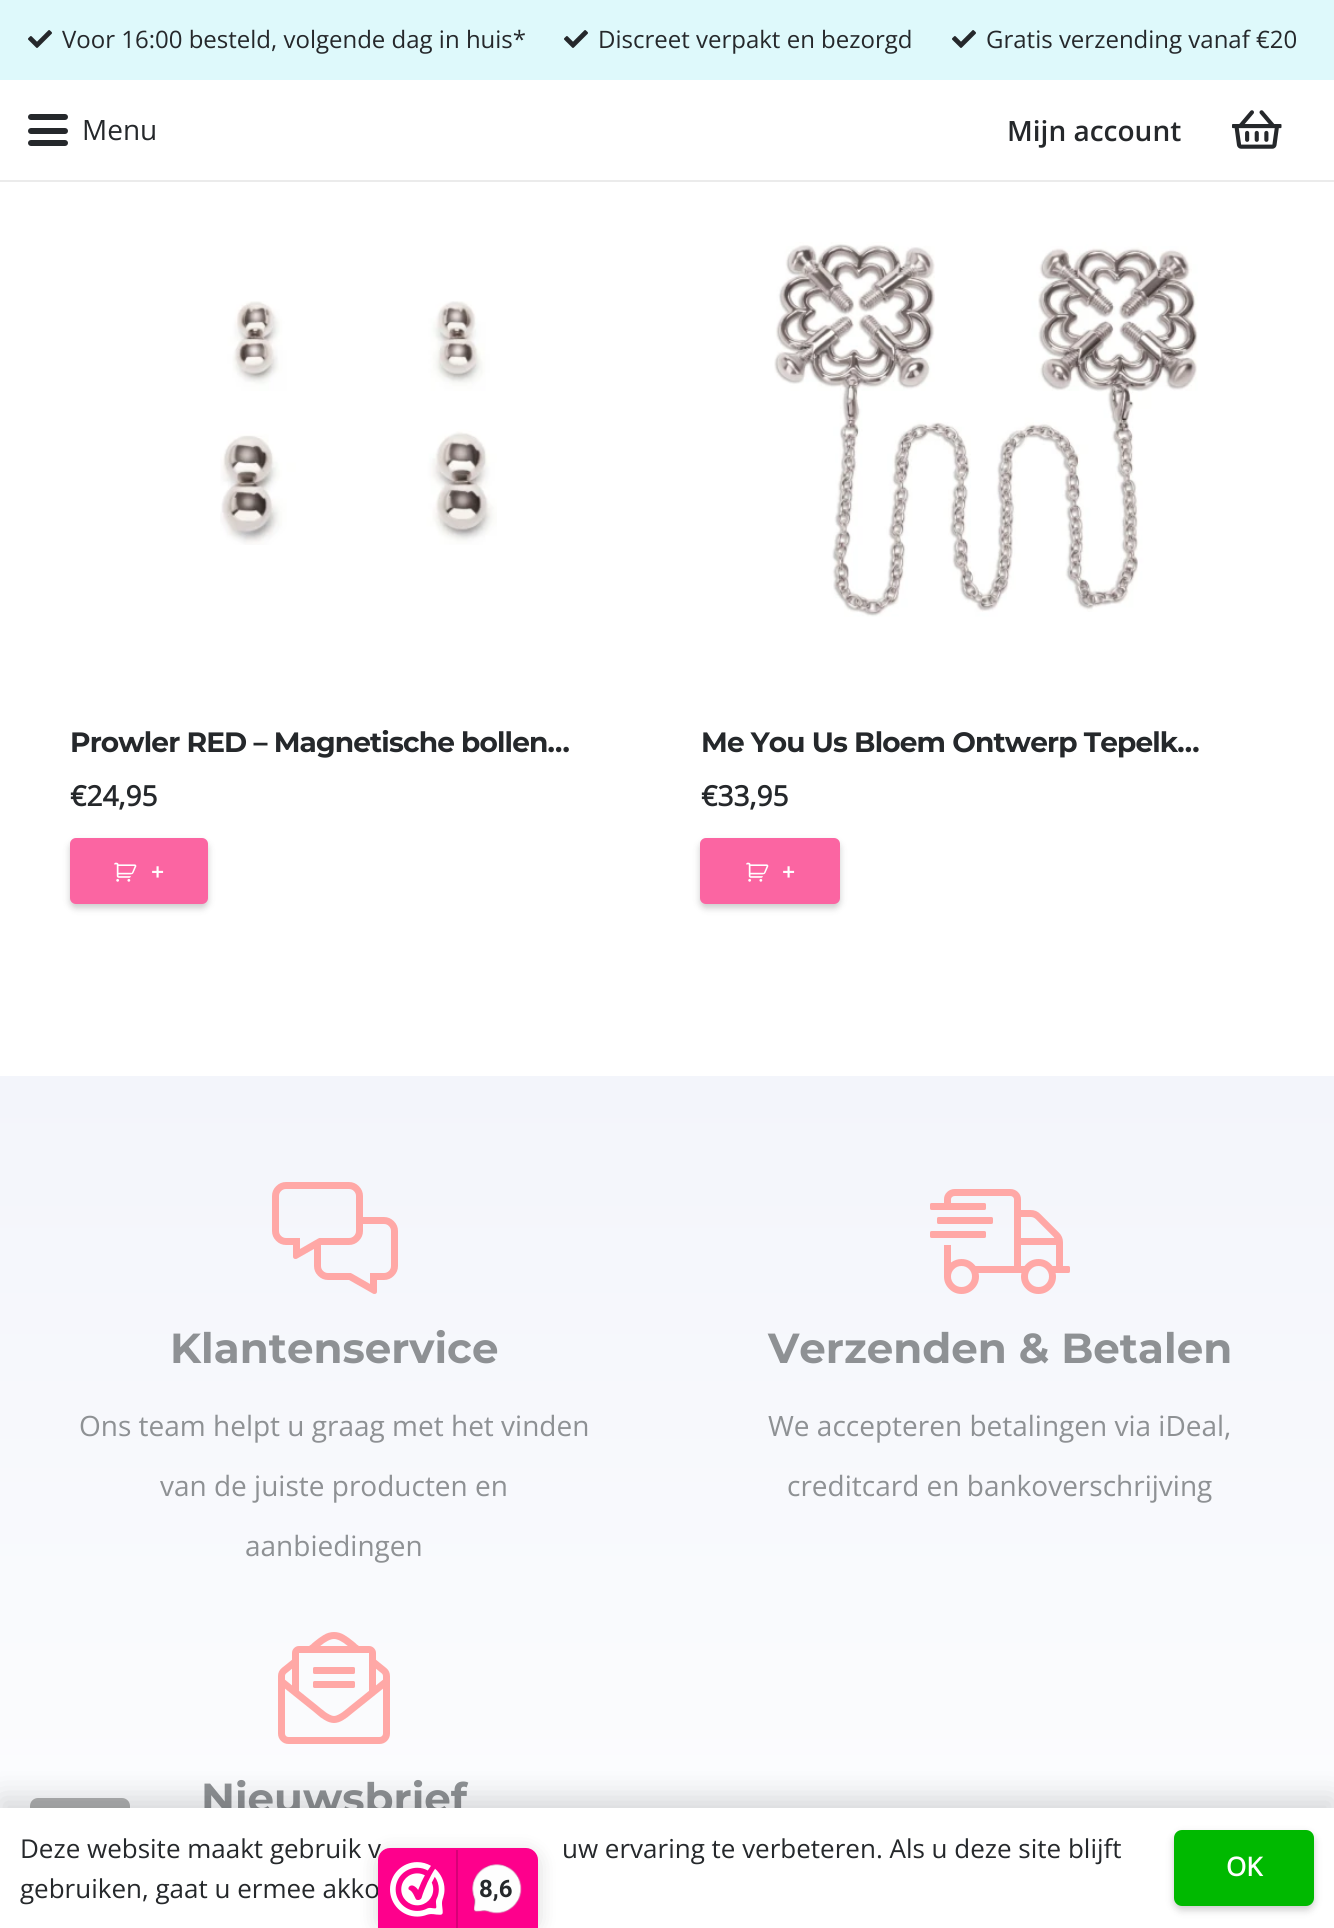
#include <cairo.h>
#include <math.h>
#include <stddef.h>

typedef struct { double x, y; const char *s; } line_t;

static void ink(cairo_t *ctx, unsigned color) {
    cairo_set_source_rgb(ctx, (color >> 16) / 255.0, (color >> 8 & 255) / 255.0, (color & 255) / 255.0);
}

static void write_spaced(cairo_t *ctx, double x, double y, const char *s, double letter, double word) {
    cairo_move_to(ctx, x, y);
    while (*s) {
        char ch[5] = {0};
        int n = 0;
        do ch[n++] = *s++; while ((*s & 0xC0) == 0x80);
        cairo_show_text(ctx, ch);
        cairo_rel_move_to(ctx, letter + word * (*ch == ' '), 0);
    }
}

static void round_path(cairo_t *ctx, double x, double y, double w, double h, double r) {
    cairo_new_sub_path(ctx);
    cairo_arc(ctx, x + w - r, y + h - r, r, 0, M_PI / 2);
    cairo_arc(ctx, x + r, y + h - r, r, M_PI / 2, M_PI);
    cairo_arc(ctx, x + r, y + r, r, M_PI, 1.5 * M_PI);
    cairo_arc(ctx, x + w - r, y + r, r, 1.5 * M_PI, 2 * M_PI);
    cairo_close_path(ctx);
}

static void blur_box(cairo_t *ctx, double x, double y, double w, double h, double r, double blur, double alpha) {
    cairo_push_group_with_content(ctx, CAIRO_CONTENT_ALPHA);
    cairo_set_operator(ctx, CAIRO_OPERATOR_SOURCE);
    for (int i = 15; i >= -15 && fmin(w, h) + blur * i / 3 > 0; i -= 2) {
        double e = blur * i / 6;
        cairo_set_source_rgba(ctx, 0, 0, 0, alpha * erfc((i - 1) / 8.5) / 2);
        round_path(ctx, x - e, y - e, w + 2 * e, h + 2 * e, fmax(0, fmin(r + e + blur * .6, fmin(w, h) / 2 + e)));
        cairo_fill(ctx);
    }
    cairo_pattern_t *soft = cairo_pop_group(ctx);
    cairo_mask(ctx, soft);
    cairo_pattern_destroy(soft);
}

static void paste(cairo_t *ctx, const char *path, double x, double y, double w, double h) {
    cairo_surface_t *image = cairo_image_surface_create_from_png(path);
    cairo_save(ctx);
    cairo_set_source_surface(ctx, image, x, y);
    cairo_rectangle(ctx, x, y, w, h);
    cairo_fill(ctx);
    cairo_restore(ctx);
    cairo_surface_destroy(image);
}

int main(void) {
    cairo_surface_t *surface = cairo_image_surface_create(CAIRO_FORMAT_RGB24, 1334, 1928);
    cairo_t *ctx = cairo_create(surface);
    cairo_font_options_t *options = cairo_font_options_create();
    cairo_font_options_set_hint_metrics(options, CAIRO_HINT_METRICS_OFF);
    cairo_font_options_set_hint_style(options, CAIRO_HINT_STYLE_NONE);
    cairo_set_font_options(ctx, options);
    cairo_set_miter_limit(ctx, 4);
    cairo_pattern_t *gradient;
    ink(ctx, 0xFFFFFF);
    cairo_paint(ctx);
    ink(ctx, 0xDEF9FB);
    cairo_rectangle(ctx, 0, 0, 1334, 80);
    cairo_fill(ctx);
    paste(ctx, "media/1.png", 28, 30, 24, 18);
    cairo_select_font_face(ctx, "Open Sans", CAIRO_FONT_SLANT_NORMAL, CAIRO_FONT_WEIGHT_NORMAL);
    cairo_set_font_size(ctx, 24);
    ink(ctx, 0x25282B);
    cairo_move_to(ctx, 62, 48);
    cairo_show_text(ctx, "Voor 16:00 besteld, volgende dag in huis*");
    paste(ctx, "media/1.png", 564, 30, 24, 18);
    cairo_move_to(ctx, 598, 48);
    cairo_show_text(ctx, "Discreet verpakt en bezorgd");
    paste(ctx, "media/1.png", 952, 30, 24, 18);
    cairo_move_to(ctx, 986, 48);
    cairo_show_text(ctx, "Gratis verzending vanaf €20");
    ink(ctx, 0xEBEBEB);
    cairo_rectangle(ctx, 0, 180, 1334, 2);
    cairo_fill(ctx);
    ink(ctx, 0x25282B);
    round_path(ctx, 28, 128, 40, 6, 3);
    cairo_fill(ctx);
    round_path(ctx, 28, 114, 40, 6, 3);
    cairo_fill(ctx);
    round_path(ctx, 28, 140, 40, 6, 3);
    cairo_fill(ctx);
    cairo_set_font_size(ctx, 28);
    cairo_move_to(ctx, 82, 140);
    cairo_show_text(ctx, "Menu");
    cairo_select_font_face(ctx, "Open Sans SemiBold", CAIRO_FONT_SLANT_NORMAL, CAIRO_FONT_WEIGHT_NORMAL);
    cairo_move_to(ctx, 1007, 141);
    cairo_show_text(ctx, "Mijn account");
    paste(ctx, "media/2.png", 1232, 110, 50, 39);
    paste(ctx, "media/3.png", 220, 301, 277, 244);
    cairo_select_font_face(ctx, "Montserrat Thin", CAIRO_FONT_SLANT_NORMAL, CAIRO_FONT_WEIGHT_NORMAL);
    write_spaced(ctx, 70, 752, "Prowler RED – Magnetische bollen…", -0.85, 0);
    cairo_select_font_face(ctx, "Open Sans", CAIRO_FONT_SLANT_NORMAL, CAIRO_FONT_WEIGHT_BOLD);
    cairo_move_to(ctx, 70, 806);
    cairo_show_text(ctx, "€24,95");
    ink(ctx, 0x000000);
    blur_box(ctx, 70, 842, 138, 66, 6, 3.5, 0.2);
    ink(ctx, 0xFB65A2);
    round_path(ctx, 70, 838, 138, 66, 6);
    cairo_fill(ctx);
    paste(ctx, "media/4.png", 114, 862, 23, 20);
    cairo_set_font_size(ctx, 22);
    ink(ctx, 0xFFFFFF);
    cairo_move_to(ctx, 151, 880);
    cairo_show_text(ctx, "+");
    paste(ctx, "media/5.png", 774, 242, 424, 375);
    cairo_select_font_face(ctx, "Montserrat Thin", CAIRO_FONT_SLANT_NORMAL, CAIRO_FONT_WEIGHT_NORMAL);
    cairo_set_font_size(ctx, 28);
    ink(ctx, 0x25282B);
    write_spaced(ctx, 701, 752, "Me You Us Bloem Ontwerp Tepelk…", -0.85, 0);
    cairo_select_font_face(ctx, "Open Sans", CAIRO_FONT_SLANT_NORMAL, CAIRO_FONT_WEIGHT_BOLD);
    cairo_move_to(ctx, 701, 806);
    cairo_show_text(ctx, "€33,95");
    ink(ctx, 0x000000);
    blur_box(ctx, 700, 842, 140, 66, 6, 3.5, 0.2);
    ink(ctx, 0xFB65A2);
    round_path(ctx, 700, 838, 140, 66, 6);
    cairo_fill(ctx);
    paste(ctx, "media/4.png", 746, 862, 23, 20);
    cairo_set_font_size(ctx, 22);
    ink(ctx, 0xFFFFFF);
    cairo_move_to(ctx, 782, 880);
    cairo_show_text(ctx, "+");
    gradient = cairo_pattern_create_linear(667, 1076, 667, 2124);
    cairo_pattern_add_color_stop_rgba(gradient, 0, 0.953, 0.961, 0.984, 1);
    cairo_pattern_add_color_stop_rgba(gradient, 1, 1, 1, 1, 1);
    cairo_set_source(ctx, gradient);
    cairo_pattern_destroy(gradient);
    cairo_rectangle(ctx, 0, 1076, 1334, 732);
    cairo_fill(ctx);
    paste(ctx, "media/6.png", 272, 1182, 126, 112);
    cairo_select_font_face(ctx, "Montserrat Thin", CAIRO_FONT_SLANT_NORMAL, CAIRO_FONT_WEIGHT_NORMAL);
    cairo_set_font_size(ctx, 42);
    ink(ctx, 0x8E9194);
    cairo_move_to(ctx, 170, 1363);
    cairo_show_text(ctx, "Klantenservice");
    cairo_select_font_face(ctx, "Open Sans", CAIRO_FONT_SLANT_NORMAL, CAIRO_FONT_WEIGHT_NORMAL);
    cairo_set_font_size(ctx, 28);
    {
        static const line_t items[] = {
            {79, 1436, "Ons team helpt u graag met het vinden"},
            {160, 1496, "van de juiste producten en"},
            {245, 1556, "aanbiedingen"},
        };
        for (size_t i = 0; i < sizeof items / sizeof *items; i++) {
            cairo_move_to(ctx, items[i].x, items[i].y);
            cairo_show_text(ctx, items[i].s);
        }
    }
    paste(ctx, "media/7.png", 930, 1189, 140, 105);
    cairo_select_font_face(ctx, "Montserrat Thin", CAIRO_FONT_SLANT_NORMAL, CAIRO_FONT_WEIGHT_NORMAL);
    cairo_set_font_size(ctx, 42);
    cairo_move_to(ctx, 768, 1363);
    cairo_show_text(ctx, "Verzenden & Betalen");
    cairo_select_font_face(ctx, "Open Sans", CAIRO_FONT_SLANT_NORMAL, CAIRO_FONT_WEIGHT_NORMAL);
    cairo_set_font_size(ctx, 28);
    cairo_move_to(ctx, 768, 1436);
    cairo_show_text(ctx, "We accepteren betalingen via iDeal,");
    cairo_move_to(ctx, 787, 1496);
    cairo_show_text(ctx, "creditcard en bankoverschrijving");
    paste(ctx, "media/8.png", 278, 1632, 112, 112);
    cairo_select_font_face(ctx, "Montserrat Thin", CAIRO_FONT_SLANT_NORMAL, CAIRO_FONT_WEIGHT_NORMAL);
    cairo_set_font_size(ctx, 42);
    cairo_move_to(ctx, 201, 1813);
    cairo_show_text(ctx, "Nieuwsbrief");
    cairo_set_source_rgba(ctx, 0, 0, 0, 0.3);
    round_path(ctx, 30, 1798, 100, 100, 8);
    cairo_fill(ctx);
    ink(ctx, 0x000000);
    blur_box(ctx, 0, 1798, 1334, 120, 0, 15, 0.15);
    ink(ctx, 0xFFFFFF);
    cairo_rectangle(ctx, 0, 1808, 1334, 120);
    cairo_fill(ctx);
    cairo_select_font_face(ctx, "Open Sans", CAIRO_FONT_SLANT_NORMAL, CAIRO_FONT_WEIGHT_NORMAL);
    cairo_set_font_size(ctx, 26);
    ink(ctx, 0x25282B);
    {
        static const line_t items[] = {
            {20, 1858, "Deze website maakt gebruik v"},
            {562, 1858, "uw ervaring te verbeteren. Als u deze site blijft"},
            {20, 1898, "gebruiken, gaat u ermee akko"},
        };
        for (size_t i = 0; i < sizeof items / sizeof *items; i++) {
            cairo_move_to(ctx, items[i].x, items[i].y);
            cairo_show_text(ctx, items[i].s);
        }
    }
    ink(ctx, 0x000000);
    blur_box(ctx, 1174, 1834, 140, 76, 8, 4, 0.2);
    ink(ctx, 0x00B900);
    round_path(ctx, 1174, 1830, 140, 76, 8);
    cairo_fill(ctx);
    cairo_select_font_face(ctx, "Open Sans", CAIRO_FONT_SLANT_NORMAL, CAIRO_FONT_WEIGHT_BOLD);
    ink(ctx, 0xFFFFFF);
    cairo_move_to(ctx, 1226, 1876);
    cairo_show_text(ctx, "OK");
    ink(ctx, 0x000000);
    blur_box(ctx, 378, 1852, 160, 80, 12, 10, 0.15);
    ink(ctx, 0xFE008C);
    cairo_new_path(ctx);
    cairo_move_to(ctx, 390, 1848);
    cairo_line_to(ctx, 526, 1848);
    cairo_curve_to(ctx, 532.5, 1848, 538, 1853.5, 538, 1860);
    cairo_line_to(ctx, 538, 1928);
    cairo_line_to(ctx, 378, 1928);
    cairo_line_to(ctx, 378, 1860);
    cairo_curve_to(ctx, 378, 1853.5, 383.5, 1848, 390, 1848);
    cairo_close_path(ctx);
    cairo_fill(ctx);
    paste(ctx, "media/9.png", 390, 1862, 55, 55);
    ink(ctx, 0xD80077);
    cairo_rectangle(ctx, 456, 1850, 2, 78);
    cairo_fill(ctx);
    paste(ctx, "media/10.png", 472, 1864, 50, 50);
    cairo_select_font_face(ctx, "Roboto", CAIRO_FONT_SLANT_NORMAL, CAIRO_FONT_WEIGHT_BOLD);
    cairo_set_font_size(ctx, 24);
    ink(ctx, 0x25282B);
    cairo_move_to(ctx, 479, 1897);
    cairo_show_text(ctx, "8,6");
    cairo_surface_write_to_png(surface, "image.png");
    cairo_font_options_destroy(options);
    cairo_destroy(ctx);
    cairo_surface_destroy(surface);
    return 0;
}
